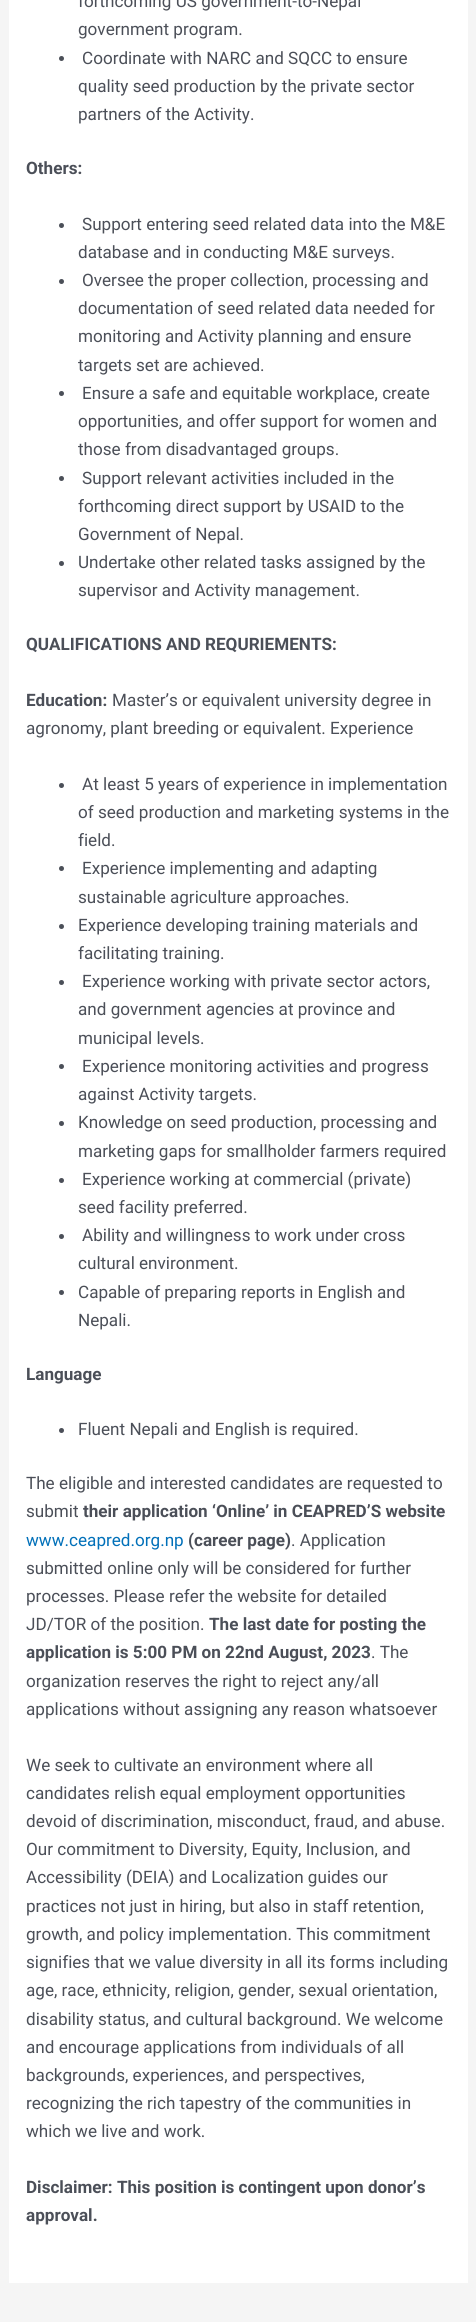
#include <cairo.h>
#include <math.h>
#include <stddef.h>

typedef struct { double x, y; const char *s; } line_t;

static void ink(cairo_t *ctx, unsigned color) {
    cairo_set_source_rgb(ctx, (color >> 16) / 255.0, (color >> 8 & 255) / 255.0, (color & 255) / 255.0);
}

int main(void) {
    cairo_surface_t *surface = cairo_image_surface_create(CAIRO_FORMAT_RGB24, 476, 2322);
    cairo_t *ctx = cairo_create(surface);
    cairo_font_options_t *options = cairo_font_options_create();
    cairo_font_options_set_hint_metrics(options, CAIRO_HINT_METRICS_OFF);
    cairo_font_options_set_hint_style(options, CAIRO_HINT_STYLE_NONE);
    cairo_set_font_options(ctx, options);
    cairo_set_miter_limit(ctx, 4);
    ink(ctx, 0xF5F5F5);
    cairo_paint(ctx);
    ink(ctx, 0xFFFFFF);
    cairo_rectangle(ctx, 9, 0, 459, 2283);
    cairo_fill(ctx);
    cairo_select_font_face(ctx, "Roboto", CAIRO_FONT_SLANT_NORMAL, CAIRO_FONT_WEIGHT_NORMAL);
    cairo_set_font_size(ctx, 17.1);
    ink(ctx, 0x4B4F58);
    cairo_move_to(ctx, 78, 7);
    cairo_show_text(ctx, "forthcoming US government-to-Nepal");
    cairo_move_to(ctx, 78, 35);
    cairo_show_text(ctx, "government program.");
    cairo_new_path(ctx);
    cairo_arc(ctx, 61.5, 58.5, 2.5, 0, 2 * M_PI);
    cairo_fill(ctx);
    {
        static const line_t items[] = {
            {82, 64, "Coordinate with NARC and SQCC to ensure"},
            {78, 92, "quality seed production by the private sector"},
            {78, 120, "partners of the Activity."},
        };
        for (size_t i = 0; i < sizeof items / sizeof *items; i++) {
            cairo_move_to(ctx, items[i].x, items[i].y);
            cairo_show_text(ctx, items[i].s);
        }
    }
    cairo_select_font_face(ctx, "Roboto", CAIRO_FONT_SLANT_NORMAL, CAIRO_FONT_WEIGHT_BOLD);
    cairo_move_to(ctx, 26, 174);
    cairo_show_text(ctx, "Others:");
    cairo_new_path(ctx);
    cairo_arc(ctx, 61.5, 225.5, 2.5, 0, 2 * M_PI);
    cairo_fill(ctx);
    cairo_select_font_face(ctx, "Roboto", CAIRO_FONT_SLANT_NORMAL, CAIRO_FONT_WEIGHT_NORMAL);
    cairo_move_to(ctx, 82, 230);
    cairo_show_text(ctx, "Support entering seed related data into the M&E");
    cairo_move_to(ctx, 78, 258);
    cairo_show_text(ctx, "database and in conducting M&E surveys.");
    cairo_new_path(ctx);
    cairo_arc(ctx, 61.5, 281.5, 2.5, 0, 2 * M_PI);
    cairo_fill(ctx);
    {
        static const line_t items[] = {
            {82, 286, "Oversee the proper collection, processing and"},
            {78, 314, "documentation of seed related data needed for"},
            {78, 342, "monitoring and Activity planning and ensure"},
            {78, 371, "targets set are achieved."},
        };
        for (size_t i = 0; i < sizeof items / sizeof *items; i++) {
            cairo_move_to(ctx, items[i].x, items[i].y);
            cairo_show_text(ctx, items[i].s);
        }
    }
    cairo_new_path(ctx);
    cairo_arc(ctx, 61.5, 393.5, 2.5, 0, 2 * M_PI);
    cairo_fill(ctx);
    {
        static const line_t items[] = {
            {82, 399, "Ensure a safe and equitable workplace, create"},
            {78, 427, "opportunities, and offer support for women and"},
            {78, 455, "those from disadvantaged groups."},
        };
        for (size_t i = 0; i < sizeof items / sizeof *items; i++) {
            cairo_move_to(ctx, items[i].x, items[i].y);
            cairo_show_text(ctx, items[i].s);
        }
    }
    cairo_new_path(ctx);
    cairo_arc(ctx, 61.5, 478.5, 2.5, 0, 2 * M_PI);
    cairo_fill(ctx);
    {
        static const line_t items[] = {
            {82, 484, "Support relevant activities included in the"},
            {78, 512, "forthcoming direct support by USAID to the"},
            {78, 540, "Government of Nepal."},
        };
        for (size_t i = 0; i < sizeof items / sizeof *items; i++) {
            cairo_move_to(ctx, items[i].x, items[i].y);
            cairo_show_text(ctx, items[i].s);
        }
    }
    cairo_new_path(ctx);
    cairo_arc(ctx, 61.5, 563.5, 2.5, 0, 2 * M_PI);
    cairo_fill(ctx);
    cairo_move_to(ctx, 78, 568);
    cairo_show_text(ctx, "Undertake other related tasks assigned by the");
    cairo_move_to(ctx, 78, 596);
    cairo_show_text(ctx, "supervisor and Activity management.");
    cairo_select_font_face(ctx, "Roboto", CAIRO_FONT_SLANT_NORMAL, CAIRO_FONT_WEIGHT_BOLD);
    cairo_move_to(ctx, 26, 650);
    cairo_show_text(ctx, "QUALIFICATIONS AND REQURIEMENTS:");
    cairo_move_to(ctx, 26, 706);
    cairo_show_text(ctx, "Education:");
    cairo_select_font_face(ctx, "Roboto", CAIRO_FONT_SLANT_NORMAL, CAIRO_FONT_WEIGHT_NORMAL);
    cairo_move_to(ctx, 112, 706);
    cairo_show_text(ctx, "Master’s or equivalent university degree in");
    cairo_move_to(ctx, 26, 734);
    cairo_show_text(ctx, "agronomy, plant breeding or equivalent. Experience");
    cairo_new_path(ctx);
    cairo_arc(ctx, 61.5, 785.5, 2.5, 0, 2 * M_PI);
    cairo_fill(ctx);
    {
        static const line_t items[] = {
            {82, 790, "At least 5 years of experience in implementation"},
            {78, 818, "of seed production and marketing systems in the"},
            {78, 846, "field."},
        };
        for (size_t i = 0; i < sizeof items / sizeof *items; i++) {
            cairo_move_to(ctx, items[i].x, items[i].y);
            cairo_show_text(ctx, items[i].s);
        }
    }
    cairo_new_path(ctx);
    cairo_arc(ctx, 61.5, 868.5, 2.5, 0, 2 * M_PI);
    cairo_fill(ctx);
    cairo_move_to(ctx, 82, 874);
    cairo_show_text(ctx, "Experience implementing and adapting");
    cairo_move_to(ctx, 78, 903);
    cairo_show_text(ctx, "sustainable agriculture approaches.");
    cairo_new_path(ctx);
    cairo_arc(ctx, 61.5, 926.5, 2.5, 0, 2 * M_PI);
    cairo_fill(ctx);
    cairo_move_to(ctx, 78, 931);
    cairo_show_text(ctx, "Experience developing training materials and");
    cairo_move_to(ctx, 78, 959);
    cairo_show_text(ctx, "facilitating training.");
    cairo_new_path(ctx);
    cairo_arc(ctx, 61.5, 982.5, 2.5, 0, 2 * M_PI);
    cairo_fill(ctx);
    {
        static const line_t items[] = {
            {82, 987, "Experience working with private sector actors,"},
            {78, 1015, "and government agencies at province and"},
            {78, 1044, "municipal levels."},
        };
        for (size_t i = 0; i < sizeof items / sizeof *items; i++) {
            cairo_move_to(ctx, items[i].x, items[i].y);
            cairo_show_text(ctx, items[i].s);
        }
    }
    cairo_new_path(ctx);
    cairo_arc(ctx, 61.5, 1066.5, 2.5, 0, 2 * M_PI);
    cairo_fill(ctx);
    cairo_move_to(ctx, 82, 1072);
    cairo_show_text(ctx, "Experience monitoring activities and progress");
    cairo_move_to(ctx, 78, 1100);
    cairo_show_text(ctx, "against Activity targets.");
    cairo_new_path(ctx);
    cairo_arc(ctx, 61.5, 1123.5, 2.5, 0, 2 * M_PI);
    cairo_fill(ctx);
    cairo_move_to(ctx, 78, 1128);
    cairo_show_text(ctx, "Knowledge on seed production, processing and");
    cairo_move_to(ctx, 78, 1157);
    cairo_show_text(ctx, "marketing gaps for smallholder farmers required");
    cairo_new_path(ctx);
    cairo_arc(ctx, 61.5, 1180.5, 2.5, 0, 2 * M_PI);
    cairo_fill(ctx);
    cairo_move_to(ctx, 82, 1185);
    cairo_show_text(ctx, "Experience working at commercial (private)");
    cairo_move_to(ctx, 78, 1213);
    cairo_show_text(ctx, "seed facility preferred.");
    cairo_new_path(ctx);
    cairo_arc(ctx, 61.5, 1236.5, 2.5, 0, 2 * M_PI);
    cairo_fill(ctx);
    cairo_move_to(ctx, 82, 1241);
    cairo_show_text(ctx, "Ability and willingness to work under cross");
    cairo_move_to(ctx, 78, 1269);
    cairo_show_text(ctx, "cultural environment.");
    cairo_new_path(ctx);
    cairo_arc(ctx, 61.5, 1292.5, 2.5, 0, 2 * M_PI);
    cairo_fill(ctx);
    cairo_move_to(ctx, 78, 1298);
    cairo_show_text(ctx, "Capable of preparing reports in English and");
    cairo_move_to(ctx, 78, 1326);
    cairo_show_text(ctx, "Nepali.");
    cairo_select_font_face(ctx, "Roboto", CAIRO_FONT_SLANT_NORMAL, CAIRO_FONT_WEIGHT_BOLD);
    cairo_move_to(ctx, 26, 1380);
    cairo_show_text(ctx, "Language");
    cairo_new_path(ctx);
    cairo_arc(ctx, 61.5, 1430.5, 2.5, 0, 2 * M_PI);
    cairo_fill(ctx);
    cairo_select_font_face(ctx, "Roboto", CAIRO_FONT_SLANT_NORMAL, CAIRO_FONT_WEIGHT_NORMAL);
    {
        static const line_t items[] = {
            {78, 1435, "Fluent Nepali and English is required."},
            {26, 1489, "The eligible and interested candidates are requested to"},
            {26, 1517, "submit"},
        };
        for (size_t i = 0; i < sizeof items / sizeof *items; i++) {
            cairo_move_to(ctx, items[i].x, items[i].y);
            cairo_show_text(ctx, items[i].s);
        }
    }
    cairo_select_font_face(ctx, "Roboto", CAIRO_FONT_SLANT_NORMAL, CAIRO_FONT_WEIGHT_BOLD);
    cairo_move_to(ctx, 83, 1517);
    cairo_show_text(ctx, "their application ‘Online’ in CEAPRED’S website");
    cairo_select_font_face(ctx, "Roboto", CAIRO_FONT_SLANT_NORMAL, CAIRO_FONT_WEIGHT_NORMAL);
    ink(ctx, 0x0170B9);
    cairo_move_to(ctx, 26, 1546);
    cairo_show_text(ctx, "www.ceapred.org.np");
    cairo_select_font_face(ctx, "Roboto", CAIRO_FONT_SLANT_NORMAL, CAIRO_FONT_WEIGHT_BOLD);
    ink(ctx, 0x4B4F58);
    cairo_move_to(ctx, 188, 1546);
    cairo_show_text(ctx, "(career page)");
    cairo_select_font_face(ctx, "Roboto", CAIRO_FONT_SLANT_NORMAL, CAIRO_FONT_WEIGHT_NORMAL);
    {
        static const line_t items[] = {
            {291, 1546, ". Application"},
            {26, 1574, "submitted online only will be considered for further"},
            {26, 1602, "processes. Please refer the website for detailed"},
            {26, 1630, "JD/TOR of the position."},
        };
        for (size_t i = 0; i < sizeof items / sizeof *items; i++) {
            cairo_move_to(ctx, items[i].x, items[i].y);
            cairo_show_text(ctx, items[i].s);
        }
    }
    cairo_select_font_face(ctx, "Roboto", CAIRO_FONT_SLANT_NORMAL, CAIRO_FONT_WEIGHT_BOLD);
    cairo_move_to(ctx, 209, 1630);
    cairo_show_text(ctx, "The last date for posting the");
    cairo_move_to(ctx, 26, 1658);
    cairo_show_text(ctx, "application is 5:00 PM on 22nd August, 2023");
    cairo_select_font_face(ctx, "Roboto", CAIRO_FONT_SLANT_NORMAL, CAIRO_FONT_WEIGHT_NORMAL);
    {
        static const line_t items[] = {
            {371, 1658, ". The"},
            {26, 1687, "organization reserves the right to reject any/all"},
            {26, 1715, "applications without assigning any reason whatsoever"},
            {26, 1771, "We seek to cultivate an environment where all"},
            {26, 1799, "candidates relish equal employment opportunities"},
            {26, 1827, "devoid of discrimination, misconduct, fraud, and abuse."},
            {26, 1855, "Our commitment to Diversity, Equity, Inclusion, and"},
            {26, 1883, "Accessibility (DEIA) and Localization guides our"},
            {26, 1912, "practices not just in hiring, but also in staff retention,"},
            {26, 1940, "growth, and policy implementation. This commitment"},
            {26, 1968, "signifies that we value diversity in all its forms including"},
            {26, 1996, "age, race, ethnicity, religion, gender, sexual orientation,"},
            {26, 2025, "disability status, and cultural background. We welcome"},
            {26, 2053, "and encourage applications from individuals of all"},
            {26, 2081, "backgrounds, experiences, and perspectives,"},
            {26, 2109, "recognizing the rich tapestry of the communities in"},
            {26, 2137, "which we live and work."},
        };
        for (size_t i = 0; i < sizeof items / sizeof *items; i++) {
            cairo_move_to(ctx, items[i].x, items[i].y);
            cairo_show_text(ctx, items[i].s);
        }
    }
    cairo_select_font_face(ctx, "Roboto", CAIRO_FONT_SLANT_NORMAL, CAIRO_FONT_WEIGHT_BOLD);
    cairo_move_to(ctx, 26, 2193);
    cairo_show_text(ctx, "Disclaimer: This position is contingent upon donor’s");
    cairo_move_to(ctx, 26, 2221);
    cairo_show_text(ctx, "approval.");
    cairo_surface_write_to_png(surface, "image.png");
    cairo_font_options_destroy(options);
    cairo_destroy(ctx);
    cairo_surface_destroy(surface);
    return 0;
}
